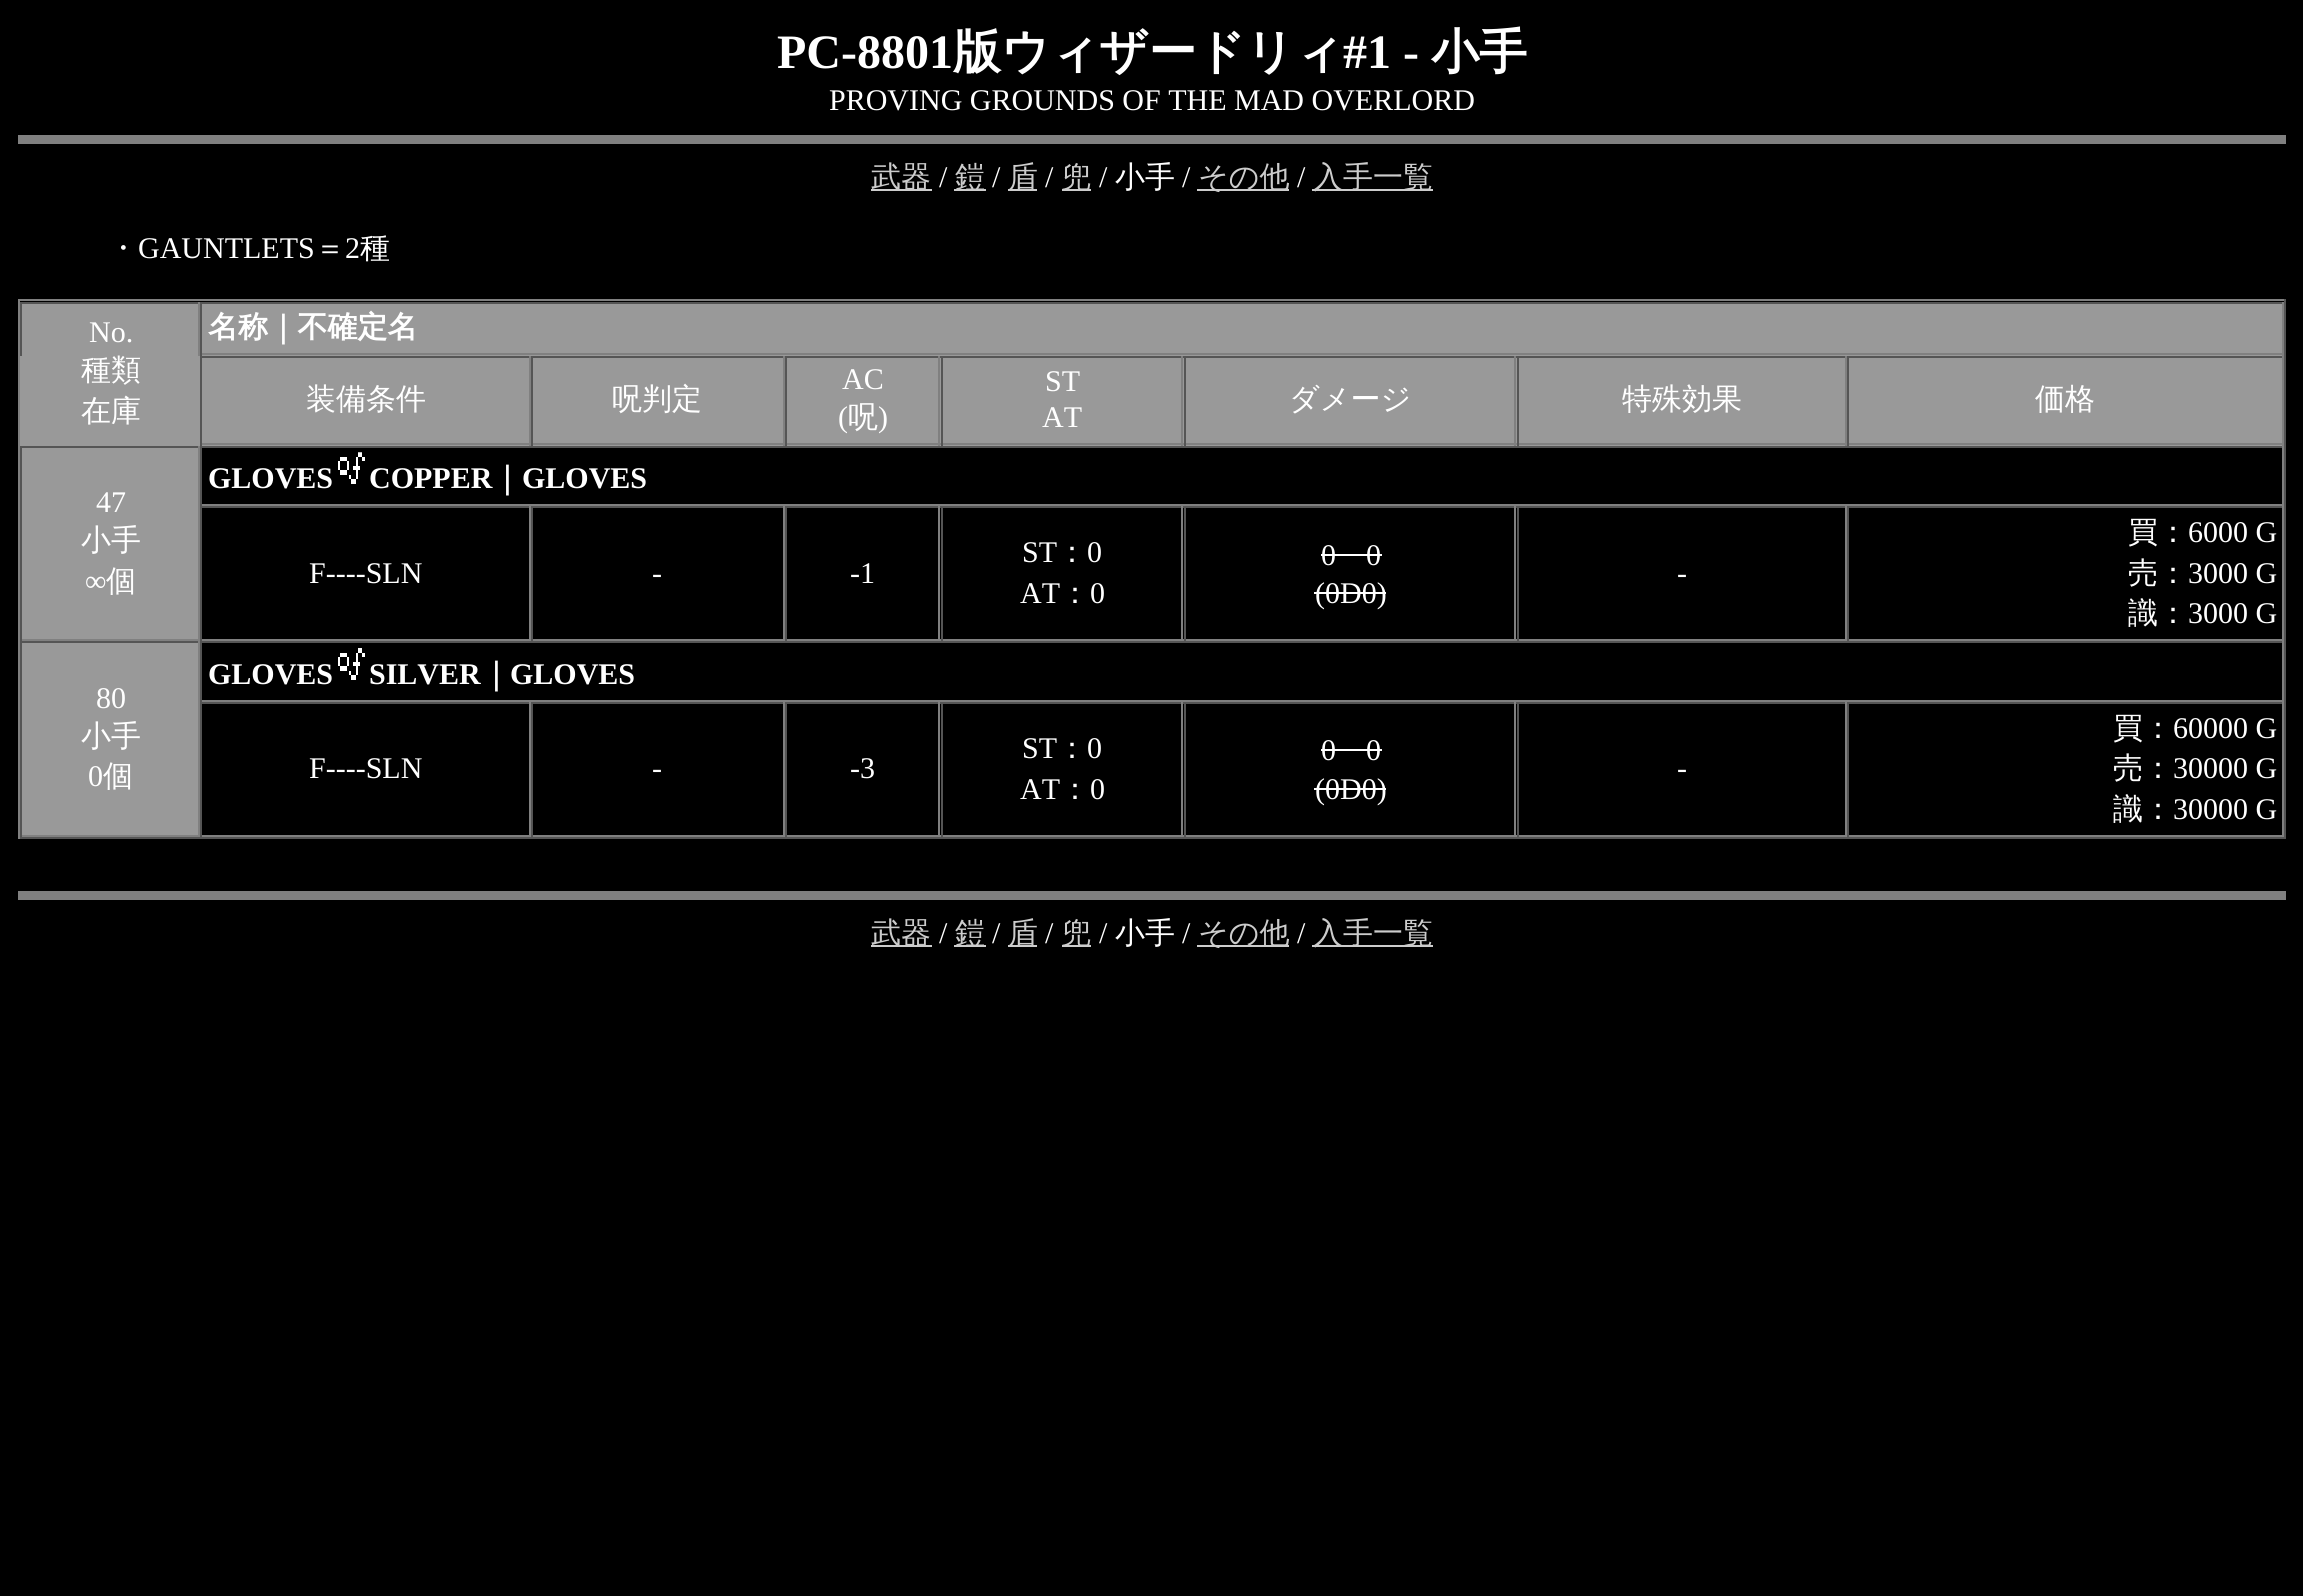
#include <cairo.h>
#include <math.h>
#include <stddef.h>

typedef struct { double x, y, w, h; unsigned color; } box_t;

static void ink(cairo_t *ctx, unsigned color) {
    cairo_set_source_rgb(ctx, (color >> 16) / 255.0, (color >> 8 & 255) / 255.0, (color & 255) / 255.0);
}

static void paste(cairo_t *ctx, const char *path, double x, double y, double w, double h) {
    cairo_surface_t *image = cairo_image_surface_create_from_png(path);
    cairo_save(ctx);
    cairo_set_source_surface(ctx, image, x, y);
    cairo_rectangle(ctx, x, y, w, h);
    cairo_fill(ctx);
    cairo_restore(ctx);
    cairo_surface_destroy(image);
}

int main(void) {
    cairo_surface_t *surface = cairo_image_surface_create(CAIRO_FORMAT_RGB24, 2303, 1596);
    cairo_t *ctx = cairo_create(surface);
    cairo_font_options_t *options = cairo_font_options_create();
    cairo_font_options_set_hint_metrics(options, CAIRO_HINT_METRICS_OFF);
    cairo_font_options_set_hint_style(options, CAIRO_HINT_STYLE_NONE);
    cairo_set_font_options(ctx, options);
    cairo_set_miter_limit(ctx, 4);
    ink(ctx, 0x000000);
    cairo_paint(ctx);
    cairo_select_font_face(ctx, "Liberation Serif", CAIRO_FONT_SLANT_NORMAL, CAIRO_FONT_WEIGHT_BOLD);
    cairo_set_font_size(ctx, 48);
    ink(ctx, 0xFFFFFF);
    cairo_move_to(ctx, 777, 68);
    cairo_show_text(ctx, "PC-8801");
    cairo_select_font_face(ctx, "WenQuanYi Zen Hei", CAIRO_FONT_SLANT_NORMAL, CAIRO_FONT_WEIGHT_BOLD);
    cairo_move_to(ctx, 953, 68);
    cairo_show_text(ctx, "版ウィザードリィ");
    cairo_select_font_face(ctx, "Liberation Serif", CAIRO_FONT_SLANT_NORMAL, CAIRO_FONT_WEIGHT_BOLD);
    cairo_move_to(ctx, 1343, 68);
    cairo_show_text(ctx, "#1 -");
    cairo_select_font_face(ctx, "WenQuanYi Zen Hei", CAIRO_FONT_SLANT_NORMAL, CAIRO_FONT_WEIGHT_BOLD);
    cairo_move_to(ctx, 1431, 68);
    cairo_show_text(ctx, "小手");
    cairo_select_font_face(ctx, "Liberation Serif", CAIRO_FONT_SLANT_NORMAL, CAIRO_FONT_WEIGHT_NORMAL);
    cairo_set_font_size(ctx, 30);
    cairo_move_to(ctx, 829, 110);
    cairo_show_text(ctx, "PROVING GROUNDS OF THE MAD OVERLORD");
    ink(ctx, 0x808080);
    cairo_rectangle(ctx, 18, 135, 2268, 9);
    cairo_fill(ctx);
    ink(ctx, 0xCCCCCC);
    cairo_rectangle(ctx, 871, 189, 61, 2);
    cairo_fill(ctx);
    cairo_select_font_face(ctx, "WenQuanYi Zen Hei Medium", CAIRO_FONT_SLANT_NORMAL, CAIRO_FONT_WEIGHT_NORMAL);
    cairo_move_to(ctx, 871, 187);
    cairo_show_text(ctx, "武器");
    cairo_select_font_face(ctx, "Liberation Serif", CAIRO_FONT_SLANT_NORMAL, CAIRO_FONT_WEIGHT_NORMAL);
    ink(ctx, 0xFFFFFF);
    cairo_move_to(ctx, 939, 187);
    cairo_show_text(ctx, "/");
    ink(ctx, 0xCCCCCC);
    cairo_rectangle(ctx, 954, 189, 32, 2);
    cairo_fill(ctx);
    cairo_select_font_face(ctx, "WenQuanYi Zen Hei Medium", CAIRO_FONT_SLANT_NORMAL, CAIRO_FONT_WEIGHT_NORMAL);
    cairo_move_to(ctx, 955, 187);
    cairo_show_text(ctx, "鎧");
    cairo_select_font_face(ctx, "Liberation Serif", CAIRO_FONT_SLANT_NORMAL, CAIRO_FONT_WEIGHT_NORMAL);
    ink(ctx, 0xFFFFFF);
    cairo_move_to(ctx, 992, 187);
    cairo_show_text(ctx, "/");
    ink(ctx, 0xCCCCCC);
    cairo_rectangle(ctx, 1008, 189, 29, 2);
    cairo_fill(ctx);
    cairo_select_font_face(ctx, "WenQuanYi Zen Hei Medium", CAIRO_FONT_SLANT_NORMAL, CAIRO_FONT_WEIGHT_NORMAL);
    cairo_move_to(ctx, 1008, 187);
    cairo_show_text(ctx, "盾");
    cairo_select_font_face(ctx, "Liberation Serif", CAIRO_FONT_SLANT_NORMAL, CAIRO_FONT_WEIGHT_NORMAL);
    ink(ctx, 0xFFFFFF);
    cairo_move_to(ctx, 1045, 187);
    cairo_show_text(ctx, "/");
    ink(ctx, 0xCCCCCC);
    cairo_rectangle(ctx, 1062, 189, 29, 2);
    cairo_fill(ctx);
    cairo_select_font_face(ctx, "WenQuanYi Zen Hei Medium", CAIRO_FONT_SLANT_NORMAL, CAIRO_FONT_WEIGHT_NORMAL);
    cairo_move_to(ctx, 1061, 187);
    cairo_show_text(ctx, "兜");
    cairo_select_font_face(ctx, "Liberation Serif", CAIRO_FONT_SLANT_NORMAL, CAIRO_FONT_WEIGHT_NORMAL);
    ink(ctx, 0xFFFFFF);
    cairo_move_to(ctx, 1099, 187);
    cairo_show_text(ctx, "/");
    cairo_select_font_face(ctx, "WenQuanYi Zen Hei Medium", CAIRO_FONT_SLANT_NORMAL, CAIRO_FONT_WEIGHT_NORMAL);
    cairo_move_to(ctx, 1115, 187);
    cairo_show_text(ctx, "小手");
    cairo_select_font_face(ctx, "Liberation Serif", CAIRO_FONT_SLANT_NORMAL, CAIRO_FONT_WEIGHT_NORMAL);
    cairo_move_to(ctx, 1182, 187);
    cairo_show_text(ctx, "/");
    ink(ctx, 0xCCCCCC);
    cairo_rectangle(ctx, 1197, 189, 92, 2);
    cairo_fill(ctx);
    cairo_select_font_face(ctx, "WenQuanYi Zen Hei Medium", CAIRO_FONT_SLANT_NORMAL, CAIRO_FONT_WEIGHT_NORMAL);
    cairo_move_to(ctx, 1198, 187);
    cairo_show_text(ctx, "その他");
    cairo_select_font_face(ctx, "Liberation Serif", CAIRO_FONT_SLANT_NORMAL, CAIRO_FONT_WEIGHT_NORMAL);
    ink(ctx, 0xFFFFFF);
    cairo_move_to(ctx, 1297, 187);
    cairo_show_text(ctx, "/");
    ink(ctx, 0xCCCCCC);
    cairo_rectangle(ctx, 1312, 189, 121, 2);
    cairo_fill(ctx);
    cairo_select_font_face(ctx, "WenQuanYi Zen Hei Medium", CAIRO_FONT_SLANT_NORMAL, CAIRO_FONT_WEIGHT_NORMAL);
    cairo_move_to(ctx, 1313, 187);
    cairo_show_text(ctx, "入手一覧");
    ink(ctx, 0xFFFFFF);
    cairo_move_to(ctx, 108, 258);
    cairo_show_text(ctx, "・");
    cairo_select_font_face(ctx, "Liberation Serif", CAIRO_FONT_SLANT_NORMAL, CAIRO_FONT_WEIGHT_NORMAL);
    cairo_move_to(ctx, 138, 258);
    cairo_show_text(ctx, "GAUNTLETS");
    cairo_select_font_face(ctx, "WenQuanYi Zen Hei Medium", CAIRO_FONT_SLANT_NORMAL, CAIRO_FONT_WEIGHT_NORMAL);
    cairo_move_to(ctx, 315, 258);
    cairo_show_text(ctx, "＝");
    cairo_select_font_face(ctx, "Liberation Serif", CAIRO_FONT_SLANT_NORMAL, CAIRO_FONT_WEIGHT_NORMAL);
    cairo_move_to(ctx, 345, 258);
    cairo_show_text(ctx, "2");
    cairo_select_font_face(ctx, "WenQuanYi Zen Hei Medium", CAIRO_FONT_SLANT_NORMAL, CAIRO_FONT_WEIGHT_NORMAL);
    cairo_move_to(ctx, 360, 258);
    cairo_show_text(ctx, "種");
    {
        static const box_t items[] = {
            {18, 299, 2268, 2, 0x808080},
            {2284, 299, 2, 540, 0x555555},
            {18, 837, 2268, 2, 0x555555},
            {18, 299, 2, 540, 0x808080},
            {22, 304, 2260, 52, 0x999999},
            {20, 302, 2264, 2, 0x555555},
            {198, 302, 2, 54, 0x808080},
            {20, 302, 2, 54, 0x555555},
        };
        for (size_t i = 0; i < sizeof items / sizeof *items; i++) {
            ink(ctx, items[i].color);
            cairo_rectangle(ctx, items[i].x, items[i].y, items[i].w, items[i].h);
            cairo_fill(ctx);
        }
    }
    cairo_select_font_face(ctx, "Liberation Serif", CAIRO_FONT_SLANT_NORMAL, CAIRO_FONT_WEIGHT_NORMAL);
    ink(ctx, 0xFFFFFF);
    cairo_move_to(ctx, 89, 342);
    cairo_show_text(ctx, "No.");
    ink(ctx, 0x999999);
    cairo_rectangle(ctx, 20, 356, 2262, 90);
    cairo_fill(ctx);
    cairo_select_font_face(ctx, "WenQuanYi Zen Hei Medium", CAIRO_FONT_SLANT_NORMAL, CAIRO_FONT_WEIGHT_NORMAL);
    ink(ctx, 0xFFFFFF);
    cairo_move_to(ctx, 81, 380);
    cairo_show_text(ctx, "種類");
    cairo_move_to(ctx, 81, 421);
    cairo_show_text(ctx, "在庫");
    {
        static const box_t items[] = {
            {2282, 302, 2, 54, 0x808080},
            {200, 353, 2084, 2, 0x808080},
            {200, 302, 2, 54, 0x555555},
        };
        for (size_t i = 0; i < sizeof items / sizeof *items; i++) {
            ink(ctx, items[i].color);
            cairo_rectangle(ctx, items[i].x, items[i].y, items[i].w, items[i].h);
            cairo_fill(ctx);
        }
    }
    cairo_select_font_face(ctx, "WenQuanYi Zen Hei", CAIRO_FONT_SLANT_NORMAL, CAIRO_FONT_WEIGHT_BOLD);
    ink(ctx, 0xFFFFFF);
    cairo_move_to(ctx, 208, 337);
    cairo_show_text(ctx, "名称｜不確定名");
    {
        static const box_t items[] = {
            {200, 356, 2084, 2, 0x555555},
            {529, 356, 2, 90, 0x808080},
            {200, 443, 331, 2, 0x808080},
            {200, 356, 2, 90, 0x555555},
        };
        for (size_t i = 0; i < sizeof items / sizeof *items; i++) {
            ink(ctx, items[i].color);
            cairo_rectangle(ctx, items[i].x, items[i].y, items[i].w, items[i].h);
            cairo_fill(ctx);
        }
    }
    cairo_select_font_face(ctx, "WenQuanYi Zen Hei Medium", CAIRO_FONT_SLANT_NORMAL, CAIRO_FONT_WEIGHT_NORMAL);
    ink(ctx, 0xFFFFFF);
    cairo_move_to(ctx, 306, 409);
    cairo_show_text(ctx, "装備条件");
    {
        static const box_t items[] = {
            {783, 356, 2, 90, 0x808080},
            {531, 443, 254, 2, 0x808080},
            {531, 356, 2, 90, 0x555555},
        };
        for (size_t i = 0; i < sizeof items / sizeof *items; i++) {
            ink(ctx, items[i].color);
            cairo_rectangle(ctx, items[i].x, items[i].y, items[i].w, items[i].h);
            cairo_fill(ctx);
        }
    }
    ink(ctx, 0xFFFFFF);
    cairo_move_to(ctx, 612, 409);
    cairo_show_text(ctx, "呪判定");
    {
        static const box_t items[] = {
            {938, 356, 2, 90, 0x808080},
            {785, 443, 156, 2, 0x808080},
            {785, 356, 2, 90, 0x555555},
        };
        for (size_t i = 0; i < sizeof items / sizeof *items; i++) {
            ink(ctx, items[i].color);
            cairo_rectangle(ctx, items[i].x, items[i].y, items[i].w, items[i].h);
            cairo_fill(ctx);
        }
    }
    cairo_select_font_face(ctx, "Liberation Serif", CAIRO_FONT_SLANT_NORMAL, CAIRO_FONT_WEIGHT_NORMAL);
    ink(ctx, 0xFFFFFF);
    cairo_move_to(ctx, 842, 389);
    cairo_show_text(ctx, "AC");
    cairo_move_to(ctx, 838, 427);
    cairo_show_text(ctx, "(");
    cairo_select_font_face(ctx, "WenQuanYi Zen Hei Medium", CAIRO_FONT_SLANT_NORMAL, CAIRO_FONT_WEIGHT_NORMAL);
    cairo_move_to(ctx, 848, 427);
    cairo_show_text(ctx, "呪");
    cairo_select_font_face(ctx, "Liberation Serif", CAIRO_FONT_SLANT_NORMAL, CAIRO_FONT_WEIGHT_NORMAL);
    cairo_move_to(ctx, 878, 427);
    cairo_show_text(ctx, ")");
    {
        static const box_t items[] = {
            {1181, 356, 2, 90, 0x808080},
            {941, 443, 243, 2, 0x808080},
            {941, 356, 2, 90, 0x555555},
        };
        for (size_t i = 0; i < sizeof items / sizeof *items; i++) {
            ink(ctx, items[i].color);
            cairo_rectangle(ctx, items[i].x, items[i].y, items[i].w, items[i].h);
            cairo_fill(ctx);
        }
    }
    ink(ctx, 0xFFFFFF);
    cairo_move_to(ctx, 1045, 391);
    cairo_show_text(ctx, "ST");
    cairo_move_to(ctx, 1042, 427);
    cairo_show_text(ctx, "AT");
    {
        static const box_t items[] = {
            {1514, 356, 2, 90, 0x808080},
            {1184, 443, 333, 2, 0x808080},
            {1184, 356, 2, 90, 0x555555},
        };
        for (size_t i = 0; i < sizeof items / sizeof *items; i++) {
            ink(ctx, items[i].color);
            cairo_rectangle(ctx, items[i].x, items[i].y, items[i].w, items[i].h);
            cairo_fill(ctx);
        }
    }
    cairo_select_font_face(ctx, "WenQuanYi Zen Hei Medium", CAIRO_FONT_SLANT_NORMAL, CAIRO_FONT_WEIGHT_NORMAL);
    ink(ctx, 0xFFFFFF);
    cairo_move_to(ctx, 1289, 409);
    cairo_show_text(ctx, "ダメージ");
    {
        static const box_t items[] = {
            {1845, 356, 2, 90, 0x808080},
            {1517, 443, 330, 2, 0x808080},
            {1517, 356, 2, 90, 0x555555},
        };
        for (size_t i = 0; i < sizeof items / sizeof *items; i++) {
            ink(ctx, items[i].color);
            cairo_rectangle(ctx, items[i].x, items[i].y, items[i].w, items[i].h);
            cairo_fill(ctx);
        }
    }
    ink(ctx, 0xFFFFFF);
    cairo_move_to(ctx, 1622, 409);
    cairo_show_text(ctx, "特殊効果");
    {
        static const box_t items[] = {
            {2282, 356, 2, 90, 0x808080},
            {1847, 443, 437, 2, 0x808080},
            {1847, 356, 2, 90, 0x555555},
        };
        for (size_t i = 0; i < sizeof items / sizeof *items; i++) {
            ink(ctx, items[i].color);
            cairo_rectangle(ctx, items[i].x, items[i].y, items[i].w, items[i].h);
            cairo_fill(ctx);
        }
    }
    ink(ctx, 0xFFFFFF);
    cairo_move_to(ctx, 2035, 409);
    cairo_show_text(ctx, "価格");
    {
        static const box_t items[] = {
            {20, 446, 2264, 2, 0x555555},
            {2282, 446, 2, 60, 0x808080},
            {200, 504, 2084, 2, 0x808080},
            {200, 446, 2, 60, 0x555555},
        };
        for (size_t i = 0; i < sizeof items / sizeof *items; i++) {
            ink(ctx, items[i].color);
            cairo_rectangle(ctx, items[i].x, items[i].y, items[i].w, items[i].h);
            cairo_fill(ctx);
        }
    }
    cairo_select_font_face(ctx, "Liberation Serif", CAIRO_FONT_SLANT_NORMAL, CAIRO_FONT_WEIGHT_BOLD);
    ink(ctx, 0xFFFFFF);
    cairo_move_to(ctx, 208, 488);
    cairo_show_text(ctx, "GLOVES");
    paste(ctx, "media/1.png", 338, 452, 27, 32);
    cairo_move_to(ctx, 369, 488);
    cairo_show_text(ctx, "COPPER");
    cairo_select_font_face(ctx, "WenQuanYi Zen Hei", CAIRO_FONT_SLANT_NORMAL, CAIRO_FONT_WEIGHT_BOLD);
    cairo_move_to(ctx, 492, 488);
    cairo_show_text(ctx, "｜");
    cairo_select_font_face(ctx, "Liberation Serif", CAIRO_FONT_SLANT_NORMAL, CAIRO_FONT_WEIGHT_BOLD);
    cairo_move_to(ctx, 522, 488);
    cairo_show_text(ctx, "GLOVES");
    {
        static const box_t items[] = {
            {22, 448, 176, 191, 0x999999},
            {198, 446, 2, 195, 0x808080},
            {20, 639, 180, 2, 0x808080},
            {20, 446, 2, 195, 0x555555},
        };
        for (size_t i = 0; i < sizeof items / sizeof *items; i++) {
            ink(ctx, items[i].color);
            cairo_rectangle(ctx, items[i].x, items[i].y, items[i].w, items[i].h);
            cairo_fill(ctx);
        }
    }
    cairo_select_font_face(ctx, "Liberation Serif", CAIRO_FONT_SLANT_NORMAL, CAIRO_FONT_WEIGHT_NORMAL);
    ink(ctx, 0xFFFFFF);
    cairo_move_to(ctx, 96, 512);
    cairo_show_text(ctx, "47");
    cairo_select_font_face(ctx, "WenQuanYi Zen Hei Medium", CAIRO_FONT_SLANT_NORMAL, CAIRO_FONT_WEIGHT_NORMAL);
    cairo_move_to(ctx, 81, 550);
    cairo_show_text(ctx, "小手");
    cairo_select_font_face(ctx, "Liberation Serif", CAIRO_FONT_SLANT_NORMAL, CAIRO_FONT_WEIGHT_NORMAL);
    cairo_move_to(ctx, 85, 591);
    cairo_show_text(ctx, "∞");
    cairo_select_font_face(ctx, "WenQuanYi Zen Hei Medium", CAIRO_FONT_SLANT_NORMAL, CAIRO_FONT_WEIGHT_NORMAL);
    cairo_move_to(ctx, 106, 591);
    cairo_show_text(ctx, "個");
    {
        static const box_t items[] = {
            {200, 506, 2084, 2, 0x555555},
            {529, 506, 2, 135, 0x808080},
            {200, 639, 331, 2, 0x808080},
            {200, 506, 2, 135, 0x555555},
        };
        for (size_t i = 0; i < sizeof items / sizeof *items; i++) {
            ink(ctx, items[i].color);
            cairo_rectangle(ctx, items[i].x, items[i].y, items[i].w, items[i].h);
            cairo_fill(ctx);
        }
    }
    cairo_select_font_face(ctx, "Liberation Serif", CAIRO_FONT_SLANT_NORMAL, CAIRO_FONT_WEIGHT_NORMAL);
    ink(ctx, 0xFFFFFF);
    cairo_move_to(ctx, 309, 583);
    cairo_show_text(ctx, "F----SLN");
    {
        static const box_t items[] = {
            {783, 506, 2, 135, 0x808080},
            {531, 639, 254, 2, 0x808080},
            {531, 506, 2, 135, 0x555555},
        };
        for (size_t i = 0; i < sizeof items / sizeof *items; i++) {
            ink(ctx, items[i].color);
            cairo_rectangle(ctx, items[i].x, items[i].y, items[i].w, items[i].h);
            cairo_fill(ctx);
        }
    }
    ink(ctx, 0xFFFFFF);
    cairo_move_to(ctx, 652, 583);
    cairo_show_text(ctx, "-");
    {
        static const box_t items[] = {
            {938, 506, 2, 135, 0x808080},
            {785, 639, 156, 2, 0x808080},
            {785, 506, 2, 135, 0x555555},
        };
        for (size_t i = 0; i < sizeof items / sizeof *items; i++) {
            ink(ctx, items[i].color);
            cairo_rectangle(ctx, items[i].x, items[i].y, items[i].w, items[i].h);
            cairo_fill(ctx);
        }
    }
    ink(ctx, 0xFFFFFF);
    cairo_move_to(ctx, 850, 583);
    cairo_show_text(ctx, "-1");
    {
        static const box_t items[] = {
            {1181, 506, 2, 135, 0x808080},
            {941, 639, 243, 2, 0x808080},
            {941, 506, 2, 135, 0x555555},
        };
        for (size_t i = 0; i < sizeof items / sizeof *items; i++) {
            ink(ctx, items[i].color);
            cairo_rectangle(ctx, items[i].x, items[i].y, items[i].w, items[i].h);
            cairo_fill(ctx);
        }
    }
    ink(ctx, 0xFFFFFF);
    cairo_move_to(ctx, 1022, 562);
    cairo_show_text(ctx, "ST");
    cairo_select_font_face(ctx, "WenQuanYi Zen Hei Medium", CAIRO_FONT_SLANT_NORMAL, CAIRO_FONT_WEIGHT_NORMAL);
    cairo_move_to(ctx, 1057, 562);
    cairo_show_text(ctx, "：");
    cairo_select_font_face(ctx, "Liberation Serif", CAIRO_FONT_SLANT_NORMAL, CAIRO_FONT_WEIGHT_NORMAL);
    cairo_move_to(ctx, 1087, 562);
    cairo_show_text(ctx, "0");
    cairo_move_to(ctx, 1020, 603);
    cairo_show_text(ctx, "AT");
    cairo_select_font_face(ctx, "WenQuanYi Zen Hei Medium", CAIRO_FONT_SLANT_NORMAL, CAIRO_FONT_WEIGHT_NORMAL);
    cairo_move_to(ctx, 1060, 603);
    cairo_show_text(ctx, "：");
    cairo_select_font_face(ctx, "Liberation Serif", CAIRO_FONT_SLANT_NORMAL, CAIRO_FONT_WEIGHT_NORMAL);
    cairo_move_to(ctx, 1090, 603);
    cairo_show_text(ctx, "0");
    {
        static const box_t items[] = {
            {1514, 506, 2, 135, 0x808080},
            {1184, 639, 333, 2, 0x808080},
            {1184, 506, 2, 135, 0x555555},
        };
        for (size_t i = 0; i < sizeof items / sizeof *items; i++) {
            ink(ctx, items[i].color);
            cairo_rectangle(ctx, items[i].x, items[i].y, items[i].w, items[i].h);
            cairo_fill(ctx);
        }
    }
    ink(ctx, 0xFFFFFF);
    cairo_move_to(ctx, 1321, 565);
    cairo_show_text(ctx, "0");
    cairo_rectangle(ctx, 1321, 554, 61, 2);
    cairo_fill(ctx);
    cairo_move_to(ctx, 1366, 565);
    cairo_show_text(ctx, "0");
    cairo_move_to(ctx, 1315, 603);
    cairo_show_text(ctx, "(0D0)");
    {
        static const box_t items[] = {
            {1314, 592, 72, 2, 0xFFFFFF},
            {1845, 506, 2, 135, 0x808080},
            {1517, 639, 330, 2, 0x808080},
            {1517, 506, 2, 135, 0x555555},
        };
        for (size_t i = 0; i < sizeof items / sizeof *items; i++) {
            ink(ctx, items[i].color);
            cairo_rectangle(ctx, items[i].x, items[i].y, items[i].w, items[i].h);
            cairo_fill(ctx);
        }
    }
    ink(ctx, 0xFFFFFF);
    cairo_move_to(ctx, 1677, 583);
    cairo_show_text(ctx, "-");
    {
        static const box_t items[] = {
            {2282, 506, 2, 135, 0x808080},
            {1847, 639, 437, 2, 0x808080},
            {1847, 506, 2, 135, 0x555555},
        };
        for (size_t i = 0; i < sizeof items / sizeof *items; i++) {
            ink(ctx, items[i].color);
            cairo_rectangle(ctx, items[i].x, items[i].y, items[i].w, items[i].h);
            cairo_fill(ctx);
        }
    }
    cairo_select_font_face(ctx, "WenQuanYi Zen Hei Medium", CAIRO_FONT_SLANT_NORMAL, CAIRO_FONT_WEIGHT_NORMAL);
    ink(ctx, 0xFFFFFF);
    cairo_move_to(ctx, 2128, 542);
    cairo_show_text(ctx, "買：");
    cairo_select_font_face(ctx, "Liberation Serif", CAIRO_FONT_SLANT_NORMAL, CAIRO_FONT_WEIGHT_NORMAL);
    cairo_move_to(ctx, 2188, 542);
    cairo_show_text(ctx, "6000 G");
    cairo_select_font_face(ctx, "WenQuanYi Zen Hei Medium", CAIRO_FONT_SLANT_NORMAL, CAIRO_FONT_WEIGHT_NORMAL);
    cairo_move_to(ctx, 2128, 583);
    cairo_show_text(ctx, "売：");
    cairo_select_font_face(ctx, "Liberation Serif", CAIRO_FONT_SLANT_NORMAL, CAIRO_FONT_WEIGHT_NORMAL);
    cairo_move_to(ctx, 2188, 583);
    cairo_show_text(ctx, "3000 G");
    cairo_select_font_face(ctx, "WenQuanYi Zen Hei Medium", CAIRO_FONT_SLANT_NORMAL, CAIRO_FONT_WEIGHT_NORMAL);
    cairo_move_to(ctx, 2128, 623);
    cairo_show_text(ctx, "識：");
    cairo_select_font_face(ctx, "Liberation Serif", CAIRO_FONT_SLANT_NORMAL, CAIRO_FONT_WEIGHT_NORMAL);
    cairo_move_to(ctx, 2188, 623);
    cairo_show_text(ctx, "3000 G");
    {
        static const box_t items[] = {
            {20, 641, 2264, 2, 0x555555},
            {2282, 641, 2, 61, 0x808080},
            {200, 700, 2084, 2, 0x808080},
            {200, 641, 2, 61, 0x555555},
        };
        for (size_t i = 0; i < sizeof items / sizeof *items; i++) {
            ink(ctx, items[i].color);
            cairo_rectangle(ctx, items[i].x, items[i].y, items[i].w, items[i].h);
            cairo_fill(ctx);
        }
    }
    cairo_select_font_face(ctx, "Liberation Serif", CAIRO_FONT_SLANT_NORMAL, CAIRO_FONT_WEIGHT_BOLD);
    ink(ctx, 0xFFFFFF);
    cairo_move_to(ctx, 208, 684);
    cairo_show_text(ctx, "GLOVES");
    paste(ctx, "media/2.png", 338, 648, 27, 32);
    cairo_move_to(ctx, 369, 684);
    cairo_show_text(ctx, "SILVER");
    cairo_select_font_face(ctx, "WenQuanYi Zen Hei", CAIRO_FONT_SLANT_NORMAL, CAIRO_FONT_WEIGHT_BOLD);
    cairo_move_to(ctx, 481, 684);
    cairo_show_text(ctx, "｜");
    cairo_select_font_face(ctx, "Liberation Serif", CAIRO_FONT_SLANT_NORMAL, CAIRO_FONT_WEIGHT_BOLD);
    cairo_move_to(ctx, 510, 684);
    cairo_show_text(ctx, "GLOVES");
    {
        static const box_t items[] = {
            {22, 643, 176, 192, 0x999999},
            {198, 641, 2, 196, 0x808080},
            {20, 835, 180, 2, 0x808080},
            {20, 641, 2, 196, 0x555555},
        };
        for (size_t i = 0; i < sizeof items / sizeof *items; i++) {
            ink(ctx, items[i].color);
            cairo_rectangle(ctx, items[i].x, items[i].y, items[i].w, items[i].h);
            cairo_fill(ctx);
        }
    }
    cairo_select_font_face(ctx, "Liberation Serif", CAIRO_FONT_SLANT_NORMAL, CAIRO_FONT_WEIGHT_NORMAL);
    ink(ctx, 0xFFFFFF);
    cairo_move_to(ctx, 96, 708);
    cairo_show_text(ctx, "80");
    cairo_select_font_face(ctx, "WenQuanYi Zen Hei Medium", CAIRO_FONT_SLANT_NORMAL, CAIRO_FONT_WEIGHT_NORMAL);
    cairo_move_to(ctx, 81, 746);
    cairo_show_text(ctx, "小手");
    cairo_select_font_face(ctx, "Liberation Serif", CAIRO_FONT_SLANT_NORMAL, CAIRO_FONT_WEIGHT_NORMAL);
    cairo_move_to(ctx, 88, 786);
    cairo_show_text(ctx, "0");
    cairo_select_font_face(ctx, "WenQuanYi Zen Hei Medium", CAIRO_FONT_SLANT_NORMAL, CAIRO_FONT_WEIGHT_NORMAL);
    cairo_move_to(ctx, 103, 786);
    cairo_show_text(ctx, "個");
    {
        static const box_t items[] = {
            {200, 702, 2084, 2, 0x555555},
            {529, 702, 2, 135, 0x808080},
            {200, 835, 331, 2, 0x808080},
            {200, 702, 2, 135, 0x555555},
        };
        for (size_t i = 0; i < sizeof items / sizeof *items; i++) {
            ink(ctx, items[i].color);
            cairo_rectangle(ctx, items[i].x, items[i].y, items[i].w, items[i].h);
            cairo_fill(ctx);
        }
    }
    cairo_select_font_face(ctx, "Liberation Serif", CAIRO_FONT_SLANT_NORMAL, CAIRO_FONT_WEIGHT_NORMAL);
    ink(ctx, 0xFFFFFF);
    cairo_move_to(ctx, 309, 778);
    cairo_show_text(ctx, "F----SLN");
    {
        static const box_t items[] = {
            {783, 702, 2, 135, 0x808080},
            {531, 835, 254, 2, 0x808080},
            {531, 702, 2, 135, 0x555555},
        };
        for (size_t i = 0; i < sizeof items / sizeof *items; i++) {
            ink(ctx, items[i].color);
            cairo_rectangle(ctx, items[i].x, items[i].y, items[i].w, items[i].h);
            cairo_fill(ctx);
        }
    }
    ink(ctx, 0xFFFFFF);
    cairo_move_to(ctx, 652, 778);
    cairo_show_text(ctx, "-");
    {
        static const box_t items[] = {
            {938, 702, 2, 135, 0x808080},
            {785, 835, 156, 2, 0x808080},
            {785, 702, 2, 135, 0x555555},
        };
        for (size_t i = 0; i < sizeof items / sizeof *items; i++) {
            ink(ctx, items[i].color);
            cairo_rectangle(ctx, items[i].x, items[i].y, items[i].w, items[i].h);
            cairo_fill(ctx);
        }
    }
    ink(ctx, 0xFFFFFF);
    cairo_move_to(ctx, 850, 778);
    cairo_show_text(ctx, "-3");
    {
        static const box_t items[] = {
            {1181, 702, 2, 135, 0x808080},
            {941, 835, 243, 2, 0x808080},
            {941, 702, 2, 135, 0x555555},
        };
        for (size_t i = 0; i < sizeof items / sizeof *items; i++) {
            ink(ctx, items[i].color);
            cairo_rectangle(ctx, items[i].x, items[i].y, items[i].w, items[i].h);
            cairo_fill(ctx);
        }
    }
    ink(ctx, 0xFFFFFF);
    cairo_move_to(ctx, 1022, 758);
    cairo_show_text(ctx, "ST");
    cairo_select_font_face(ctx, "WenQuanYi Zen Hei Medium", CAIRO_FONT_SLANT_NORMAL, CAIRO_FONT_WEIGHT_NORMAL);
    cairo_move_to(ctx, 1057, 758);
    cairo_show_text(ctx, "：");
    cairo_select_font_face(ctx, "Liberation Serif", CAIRO_FONT_SLANT_NORMAL, CAIRO_FONT_WEIGHT_NORMAL);
    cairo_move_to(ctx, 1087, 758);
    cairo_show_text(ctx, "0");
    cairo_move_to(ctx, 1020, 799);
    cairo_show_text(ctx, "AT");
    cairo_select_font_face(ctx, "WenQuanYi Zen Hei Medium", CAIRO_FONT_SLANT_NORMAL, CAIRO_FONT_WEIGHT_NORMAL);
    cairo_move_to(ctx, 1060, 799);
    cairo_show_text(ctx, "：");
    cairo_select_font_face(ctx, "Liberation Serif", CAIRO_FONT_SLANT_NORMAL, CAIRO_FONT_WEIGHT_NORMAL);
    cairo_move_to(ctx, 1090, 799);
    cairo_show_text(ctx, "0");
    {
        static const box_t items[] = {
            {1514, 702, 2, 135, 0x808080},
            {1184, 835, 333, 2, 0x808080},
            {1184, 702, 2, 135, 0x555555},
        };
        for (size_t i = 0; i < sizeof items / sizeof *items; i++) {
            ink(ctx, items[i].color);
            cairo_rectangle(ctx, items[i].x, items[i].y, items[i].w, items[i].h);
            cairo_fill(ctx);
        }
    }
    ink(ctx, 0xFFFFFF);
    cairo_move_to(ctx, 1321, 760);
    cairo_show_text(ctx, "0");
    cairo_rectangle(ctx, 1321, 749, 61, 2);
    cairo_fill(ctx);
    cairo_move_to(ctx, 1366, 760);
    cairo_show_text(ctx, "0");
    cairo_move_to(ctx, 1315, 799);
    cairo_show_text(ctx, "(0D0)");
    {
        static const box_t items[] = {
            {1314, 788, 72, 2, 0xFFFFFF},
            {1845, 702, 2, 135, 0x808080},
            {1517, 835, 330, 2, 0x808080},
            {1517, 702, 2, 135, 0x555555},
        };
        for (size_t i = 0; i < sizeof items / sizeof *items; i++) {
            ink(ctx, items[i].color);
            cairo_rectangle(ctx, items[i].x, items[i].y, items[i].w, items[i].h);
            cairo_fill(ctx);
        }
    }
    ink(ctx, 0xFFFFFF);
    cairo_move_to(ctx, 1677, 778);
    cairo_show_text(ctx, "-");
    {
        static const box_t items[] = {
            {2282, 702, 2, 135, 0x808080},
            {1847, 835, 437, 2, 0x808080},
            {1847, 702, 2, 135, 0x555555},
        };
        for (size_t i = 0; i < sizeof items / sizeof *items; i++) {
            ink(ctx, items[i].color);
            cairo_rectangle(ctx, items[i].x, items[i].y, items[i].w, items[i].h);
            cairo_fill(ctx);
        }
    }
    cairo_select_font_face(ctx, "WenQuanYi Zen Hei Medium", CAIRO_FONT_SLANT_NORMAL, CAIRO_FONT_WEIGHT_NORMAL);
    ink(ctx, 0xFFFFFF);
    cairo_move_to(ctx, 2113, 738);
    cairo_show_text(ctx, "買：");
    cairo_select_font_face(ctx, "Liberation Serif", CAIRO_FONT_SLANT_NORMAL, CAIRO_FONT_WEIGHT_NORMAL);
    cairo_move_to(ctx, 2173, 738);
    cairo_show_text(ctx, "60000 G");
    cairo_select_font_face(ctx, "WenQuanYi Zen Hei Medium", CAIRO_FONT_SLANT_NORMAL, CAIRO_FONT_WEIGHT_NORMAL);
    cairo_move_to(ctx, 2113, 778);
    cairo_show_text(ctx, "売：");
    cairo_select_font_face(ctx, "Liberation Serif", CAIRO_FONT_SLANT_NORMAL, CAIRO_FONT_WEIGHT_NORMAL);
    cairo_move_to(ctx, 2173, 778);
    cairo_show_text(ctx, "30000 G");
    cairo_select_font_face(ctx, "WenQuanYi Zen Hei Medium", CAIRO_FONT_SLANT_NORMAL, CAIRO_FONT_WEIGHT_NORMAL);
    cairo_move_to(ctx, 2113, 819);
    cairo_show_text(ctx, "識：");
    cairo_select_font_face(ctx, "Liberation Serif", CAIRO_FONT_SLANT_NORMAL, CAIRO_FONT_WEIGHT_NORMAL);
    cairo_move_to(ctx, 2173, 819);
    cairo_show_text(ctx, "30000 G");
    ink(ctx, 0x808080);
    cairo_rectangle(ctx, 18, 891, 2268, 9);
    cairo_fill(ctx);
    ink(ctx, 0xCCCCCC);
    cairo_rectangle(ctx, 871, 945, 61, 2);
    cairo_fill(ctx);
    cairo_select_font_face(ctx, "WenQuanYi Zen Hei Medium", CAIRO_FONT_SLANT_NORMAL, CAIRO_FONT_WEIGHT_NORMAL);
    cairo_move_to(ctx, 871, 943);
    cairo_show_text(ctx, "武器");
    cairo_select_font_face(ctx, "Liberation Serif", CAIRO_FONT_SLANT_NORMAL, CAIRO_FONT_WEIGHT_NORMAL);
    ink(ctx, 0xFFFFFF);
    cairo_move_to(ctx, 939, 943);
    cairo_show_text(ctx, "/");
    ink(ctx, 0xCCCCCC);
    cairo_rectangle(ctx, 954, 945, 32, 2);
    cairo_fill(ctx);
    cairo_select_font_face(ctx, "WenQuanYi Zen Hei Medium", CAIRO_FONT_SLANT_NORMAL, CAIRO_FONT_WEIGHT_NORMAL);
    cairo_move_to(ctx, 955, 943);
    cairo_show_text(ctx, "鎧");
    cairo_select_font_face(ctx, "Liberation Serif", CAIRO_FONT_SLANT_NORMAL, CAIRO_FONT_WEIGHT_NORMAL);
    ink(ctx, 0xFFFFFF);
    cairo_move_to(ctx, 992, 943);
    cairo_show_text(ctx, "/");
    ink(ctx, 0xCCCCCC);
    cairo_rectangle(ctx, 1008, 945, 29, 2);
    cairo_fill(ctx);
    cairo_select_font_face(ctx, "WenQuanYi Zen Hei Medium", CAIRO_FONT_SLANT_NORMAL, CAIRO_FONT_WEIGHT_NORMAL);
    cairo_move_to(ctx, 1008, 943);
    cairo_show_text(ctx, "盾");
    cairo_select_font_face(ctx, "Liberation Serif", CAIRO_FONT_SLANT_NORMAL, CAIRO_FONT_WEIGHT_NORMAL);
    ink(ctx, 0xFFFFFF);
    cairo_move_to(ctx, 1045, 943);
    cairo_show_text(ctx, "/");
    ink(ctx, 0xCCCCCC);
    cairo_rectangle(ctx, 1062, 945, 29, 2);
    cairo_fill(ctx);
    cairo_select_font_face(ctx, "WenQuanYi Zen Hei Medium", CAIRO_FONT_SLANT_NORMAL, CAIRO_FONT_WEIGHT_NORMAL);
    cairo_move_to(ctx, 1061, 943);
    cairo_show_text(ctx, "兜");
    cairo_select_font_face(ctx, "Liberation Serif", CAIRO_FONT_SLANT_NORMAL, CAIRO_FONT_WEIGHT_NORMAL);
    ink(ctx, 0xFFFFFF);
    cairo_move_to(ctx, 1099, 943);
    cairo_show_text(ctx, "/");
    cairo_select_font_face(ctx, "WenQuanYi Zen Hei Medium", CAIRO_FONT_SLANT_NORMAL, CAIRO_FONT_WEIGHT_NORMAL);
    cairo_move_to(ctx, 1115, 943);
    cairo_show_text(ctx, "小手");
    cairo_select_font_face(ctx, "Liberation Serif", CAIRO_FONT_SLANT_NORMAL, CAIRO_FONT_WEIGHT_NORMAL);
    cairo_move_to(ctx, 1182, 943);
    cairo_show_text(ctx, "/");
    ink(ctx, 0xCCCCCC);
    cairo_rectangle(ctx, 1197, 945, 92, 2);
    cairo_fill(ctx);
    cairo_select_font_face(ctx, "WenQuanYi Zen Hei Medium", CAIRO_FONT_SLANT_NORMAL, CAIRO_FONT_WEIGHT_NORMAL);
    cairo_move_to(ctx, 1198, 943);
    cairo_show_text(ctx, "その他");
    cairo_select_font_face(ctx, "Liberation Serif", CAIRO_FONT_SLANT_NORMAL, CAIRO_FONT_WEIGHT_NORMAL);
    ink(ctx, 0xFFFFFF);
    cairo_move_to(ctx, 1297, 943);
    cairo_show_text(ctx, "/");
    ink(ctx, 0xCCCCCC);
    cairo_rectangle(ctx, 1312, 945, 121, 2);
    cairo_fill(ctx);
    cairo_select_font_face(ctx, "WenQuanYi Zen Hei Medium", CAIRO_FONT_SLANT_NORMAL, CAIRO_FONT_WEIGHT_NORMAL);
    cairo_move_to(ctx, 1313, 943);
    cairo_show_text(ctx, "入手一覧");
    cairo_surface_write_to_png(surface, "image.png");
    cairo_font_options_destroy(options);
    cairo_destroy(ctx);
    cairo_surface_destroy(surface);
    return 0;
}
